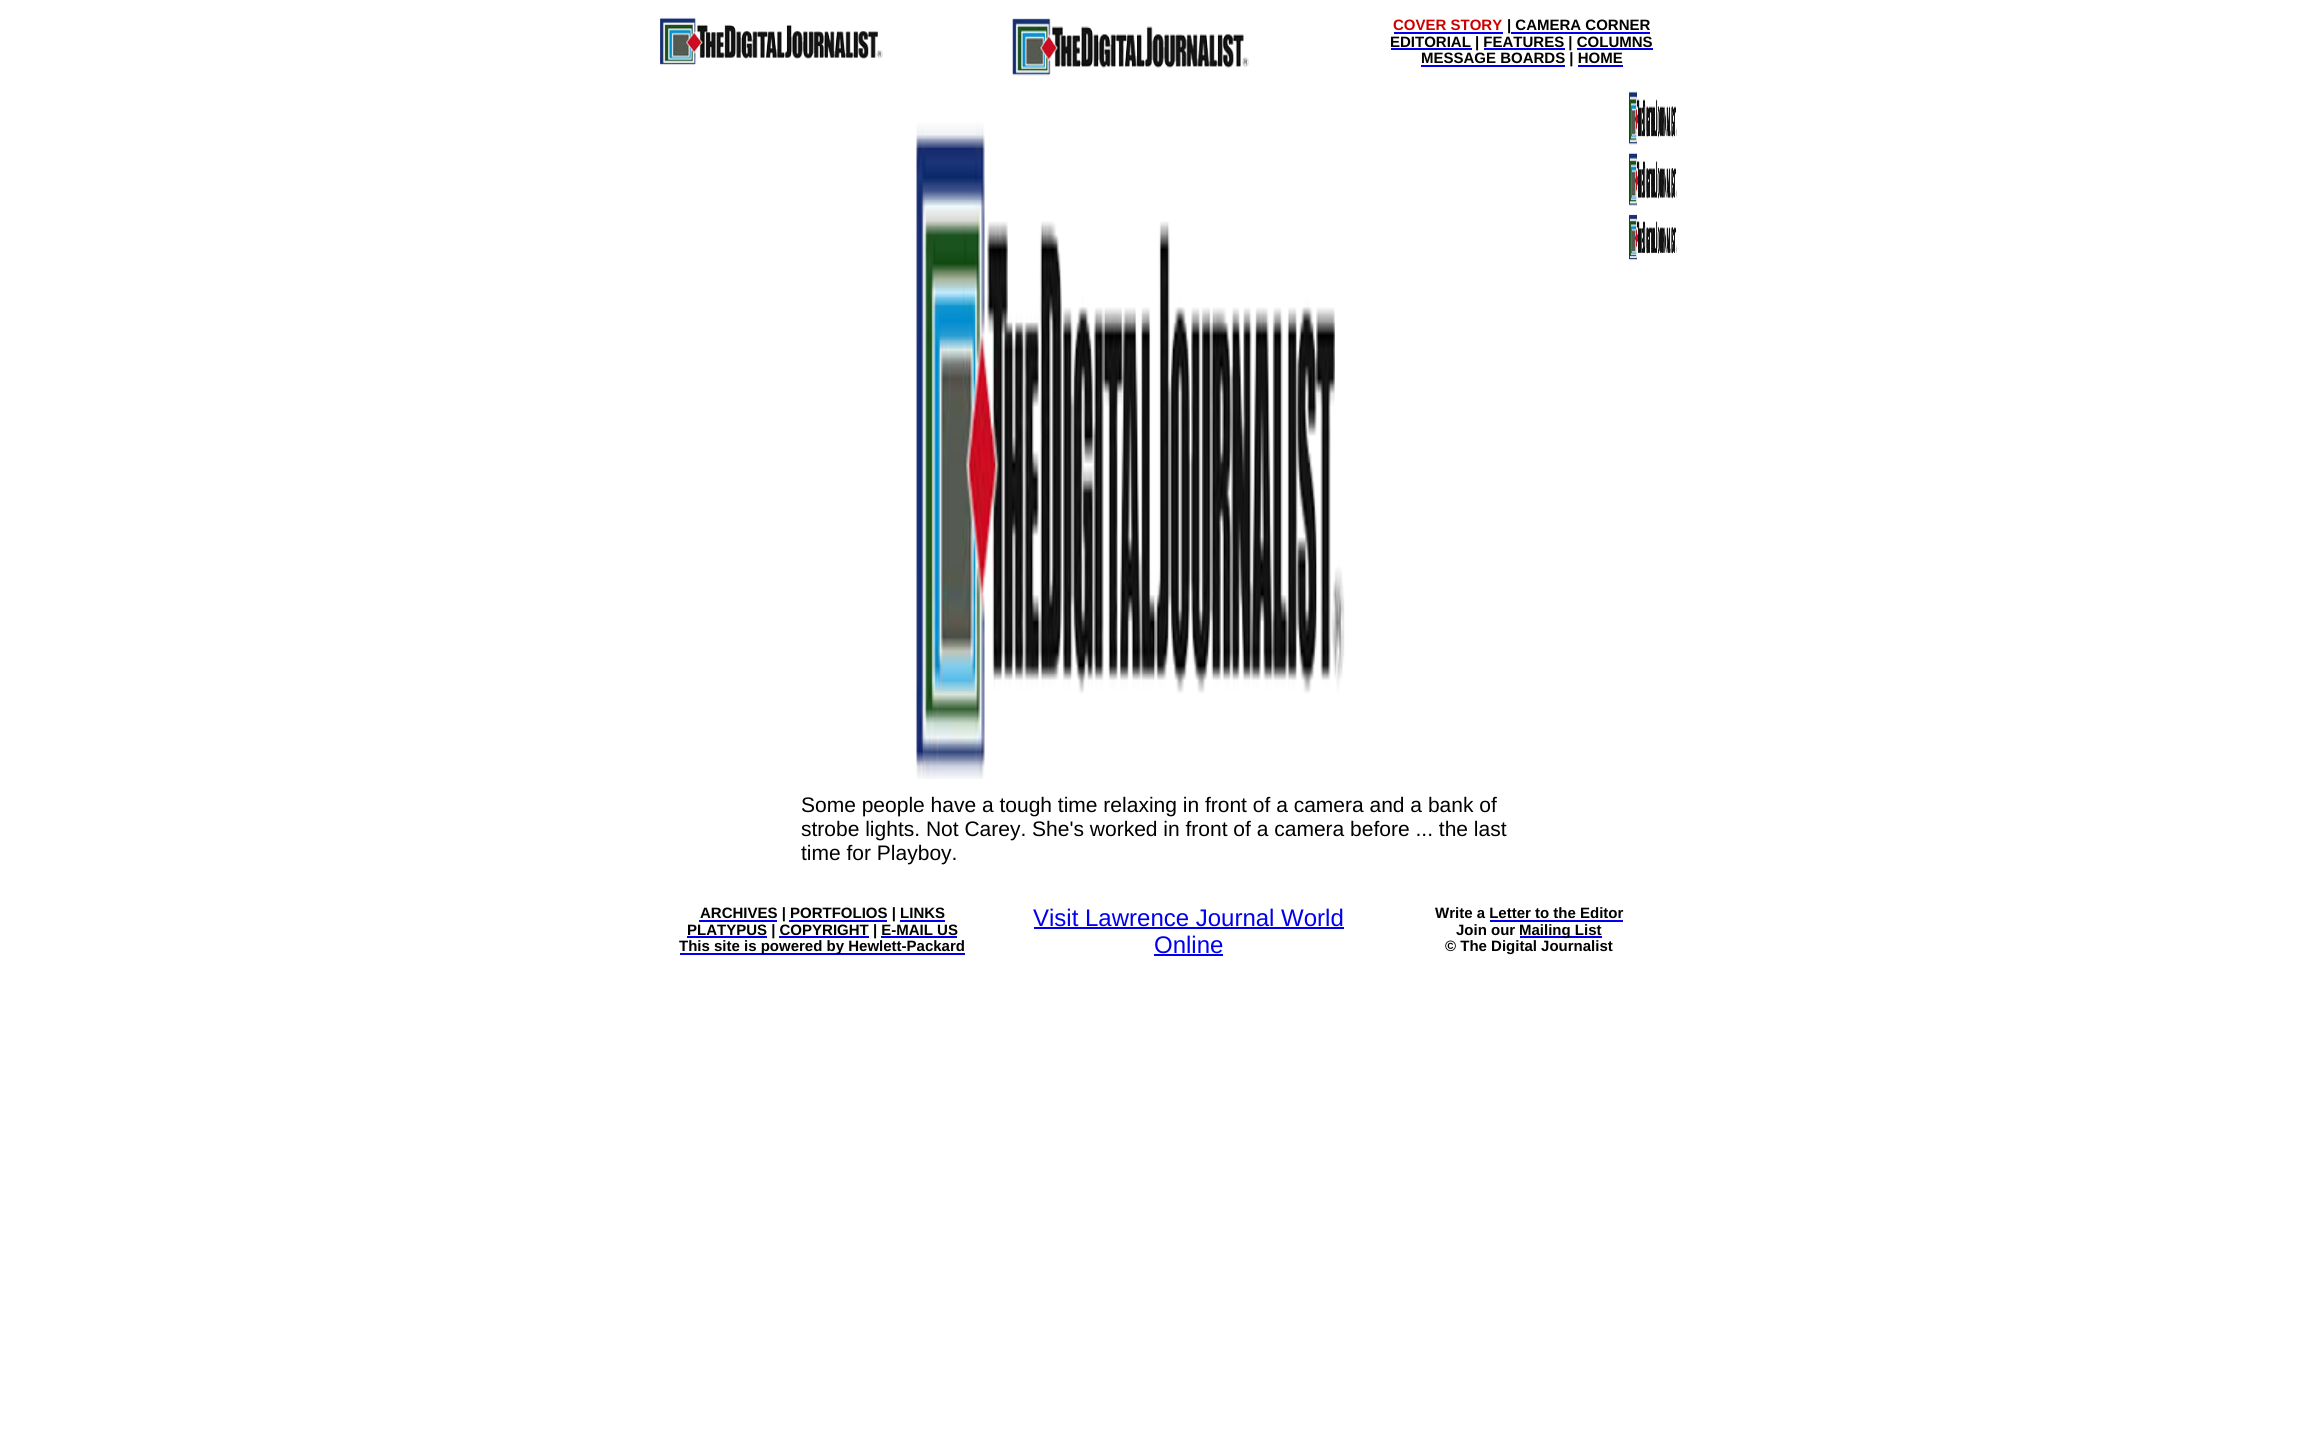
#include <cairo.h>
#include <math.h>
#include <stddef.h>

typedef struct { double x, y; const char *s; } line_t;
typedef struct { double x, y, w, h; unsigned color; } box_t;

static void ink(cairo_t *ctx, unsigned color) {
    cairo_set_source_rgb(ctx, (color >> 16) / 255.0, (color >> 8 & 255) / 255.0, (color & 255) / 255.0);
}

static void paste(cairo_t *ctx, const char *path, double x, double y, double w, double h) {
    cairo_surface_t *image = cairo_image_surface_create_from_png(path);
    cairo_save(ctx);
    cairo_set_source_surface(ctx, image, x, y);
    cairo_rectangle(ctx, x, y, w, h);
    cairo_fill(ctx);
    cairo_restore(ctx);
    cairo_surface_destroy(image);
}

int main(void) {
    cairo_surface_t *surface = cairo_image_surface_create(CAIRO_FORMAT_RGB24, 2324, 1440);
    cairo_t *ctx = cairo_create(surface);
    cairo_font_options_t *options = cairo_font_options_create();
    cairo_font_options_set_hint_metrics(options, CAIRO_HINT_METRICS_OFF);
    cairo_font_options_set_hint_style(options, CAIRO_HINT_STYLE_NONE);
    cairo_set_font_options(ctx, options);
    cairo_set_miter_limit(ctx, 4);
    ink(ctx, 0xFFFFFF);
    cairo_paint(ctx);
    paste(ctx, "media/1.png", 659, 17, 224, 48);
    paste(ctx, "media/2.png", 1012, 18, 237, 58);
    cairo_select_font_face(ctx, "Liberation Sans", CAIRO_FONT_SLANT_NORMAL, CAIRO_FONT_WEIGHT_BOLD);
    cairo_set_font_size(ctx, 15);
    ink(ctx, 0xCC0000);
    cairo_move_to(ctx, 1393, 30);
    cairo_show_text(ctx, "COVER STORY");
    ink(ctx, 0x0000EE);
    cairo_rectangle(ctx, 1394, 32, 109, 2);
    cairo_fill(ctx);
    ink(ctx, 0x000000);
    cairo_move_to(ctx, 1507, 30);
    cairo_show_text(ctx, "| CAMERA CORNER");
    ink(ctx, 0x0000EE);
    cairo_rectangle(ctx, 1511, 32, 139, 2);
    cairo_fill(ctx);
    cairo_rectangle(ctx, 1391, 48, 81, 2);
    cairo_fill(ctx);
    ink(ctx, 0x000000);
    cairo_move_to(ctx, 1390, 47);
    cairo_show_text(ctx, "EDITORIAL | FEATURES | COLUMNS");
    {
        static const box_t items[] = {
            {1484, 48, 81, 2, 0x0000EE},
            {1577, 48, 76, 2, 0x0000EE},
            {1421, 65, 144, 2, 0x0000EE},
        };
        for (size_t i = 0; i < sizeof items / sizeof *items; i++) {
            ink(ctx, items[i].color);
            cairo_rectangle(ctx, items[i].x, items[i].y, items[i].w, items[i].h);
            cairo_fill(ctx);
        }
    }
    ink(ctx, 0x000000);
    cairo_move_to(ctx, 1421, 63);
    cairo_show_text(ctx, "MESSAGE BOARDS | HOME");
    ink(ctx, 0x0000EE);
    cairo_rectangle(ctx, 1578, 65, 45, 2);
    cairo_fill(ctx);
    paste(ctx, "media/3.png", 915, 122, 430, 657);
    paste(ctx, "media/4.png", 1629, 91, 48, 54);
    paste(ctx, "media/5.png", 1629, 152, 48, 54);
    paste(ctx, "media/6.png", 1629, 214, 48, 46);
    cairo_select_font_face(ctx, "Liberation Sans", CAIRO_FONT_SLANT_NORMAL, CAIRO_FONT_WEIGHT_NORMAL);
    cairo_set_font_size(ctx, 21);
    ink(ctx, 0x000000);
    {
        static const line_t items[] = {
            {801, 812, "Some people have a tough time relaxing in front of a camera and a bank of"},
            {801, 836, "strobe lights. Not Carey. She's worked in front of a camera before ... the last"},
            {801, 860, "time for Playboy."},
        };
        for (size_t i = 0; i < sizeof items / sizeof *items; i++) {
            cairo_move_to(ctx, items[i].x, items[i].y);
            cairo_show_text(ctx, items[i].s);
        }
    }
    ink(ctx, 0x0000EE);
    cairo_rectangle(ctx, 699, 920, 78, 2);
    cairo_fill(ctx);
    cairo_select_font_face(ctx, "Liberation Sans", CAIRO_FONT_SLANT_NORMAL, CAIRO_FONT_WEIGHT_BOLD);
    cairo_set_font_size(ctx, 15);
    ink(ctx, 0x000000);
    cairo_move_to(ctx, 700, 918);
    cairo_show_text(ctx, "ARCHIVES | PORTFOLIOS | LINKS");
    {
        static const box_t items[] = {
            {789, 920, 98, 2, 0x0000EE},
            {900, 920, 45, 2, 0x0000EE},
            {687, 936, 80, 2, 0x0000EE},
        };
        for (size_t i = 0; i < sizeof items / sizeof *items; i++) {
            ink(ctx, items[i].color);
            cairo_rectangle(ctx, items[i].x, items[i].y, items[i].w, items[i].h);
            cairo_fill(ctx);
        }
    }
    ink(ctx, 0x000000);
    cairo_move_to(ctx, 687, 935);
    cairo_show_text(ctx, "PLATYPUS | COPYRIGHT | E-MAIL US");
    {
        static const box_t items[] = {
            {779, 936, 90, 2, 0x0000EE},
            {881, 936, 76, 2, 0x0000EE},
            {680, 953, 285, 2, 0x0000EE},
        };
        for (size_t i = 0; i < sizeof items / sizeof *items; i++) {
            ink(ctx, items[i].color);
            cairo_rectangle(ctx, items[i].x, items[i].y, items[i].w, items[i].h);
            cairo_fill(ctx);
        }
    }
    ink(ctx, 0x000000);
    cairo_move_to(ctx, 679, 951);
    cairo_show_text(ctx, "This site is powered by Hewlett-Packard");
    cairo_select_font_face(ctx, "Liberation Sans", CAIRO_FONT_SLANT_NORMAL, CAIRO_FONT_WEIGHT_NORMAL);
    cairo_set_font_size(ctx, 24);
    ink(ctx, 0x0000EE);
    cairo_move_to(ctx, 1033, 926);
    cairo_show_text(ctx, "Visit Lawrence Journal World");
    cairo_rectangle(ctx, 1034, 927, 310, 2);
    cairo_fill(ctx);
    cairo_move_to(ctx, 1154, 953);
    cairo_show_text(ctx, "Online");
    cairo_rectangle(ctx, 1154, 954, 69, 2);
    cairo_fill(ctx);
    cairo_select_font_face(ctx, "Liberation Sans", CAIRO_FONT_SLANT_NORMAL, CAIRO_FONT_WEIGHT_BOLD);
    cairo_set_font_size(ctx, 15);
    ink(ctx, 0x000000);
    cairo_move_to(ctx, 1435, 918);
    cairo_show_text(ctx, "Write a Letter to the Editor");
    ink(ctx, 0x0000EE);
    cairo_rectangle(ctx, 1490, 920, 133, 2);
    cairo_fill(ctx);
    ink(ctx, 0x000000);
    cairo_move_to(ctx, 1456, 935);
    cairo_show_text(ctx, "Join our");
    ink(ctx, 0x0000EE);
    cairo_rectangle(ctx, 1520, 936, 82, 2);
    cairo_fill(ctx);
    ink(ctx, 0x000000);
    cairo_move_to(ctx, 1519, 935);
    cairo_show_text(ctx, "Mailing List");
    cairo_move_to(ctx, 1445, 951);
    cairo_show_text(ctx, "© The Digital Journalist");
    cairo_surface_write_to_png(surface, "image.png");
    cairo_font_options_destroy(options);
    cairo_destroy(ctx);
    cairo_surface_destroy(surface);
    return 0;
}
